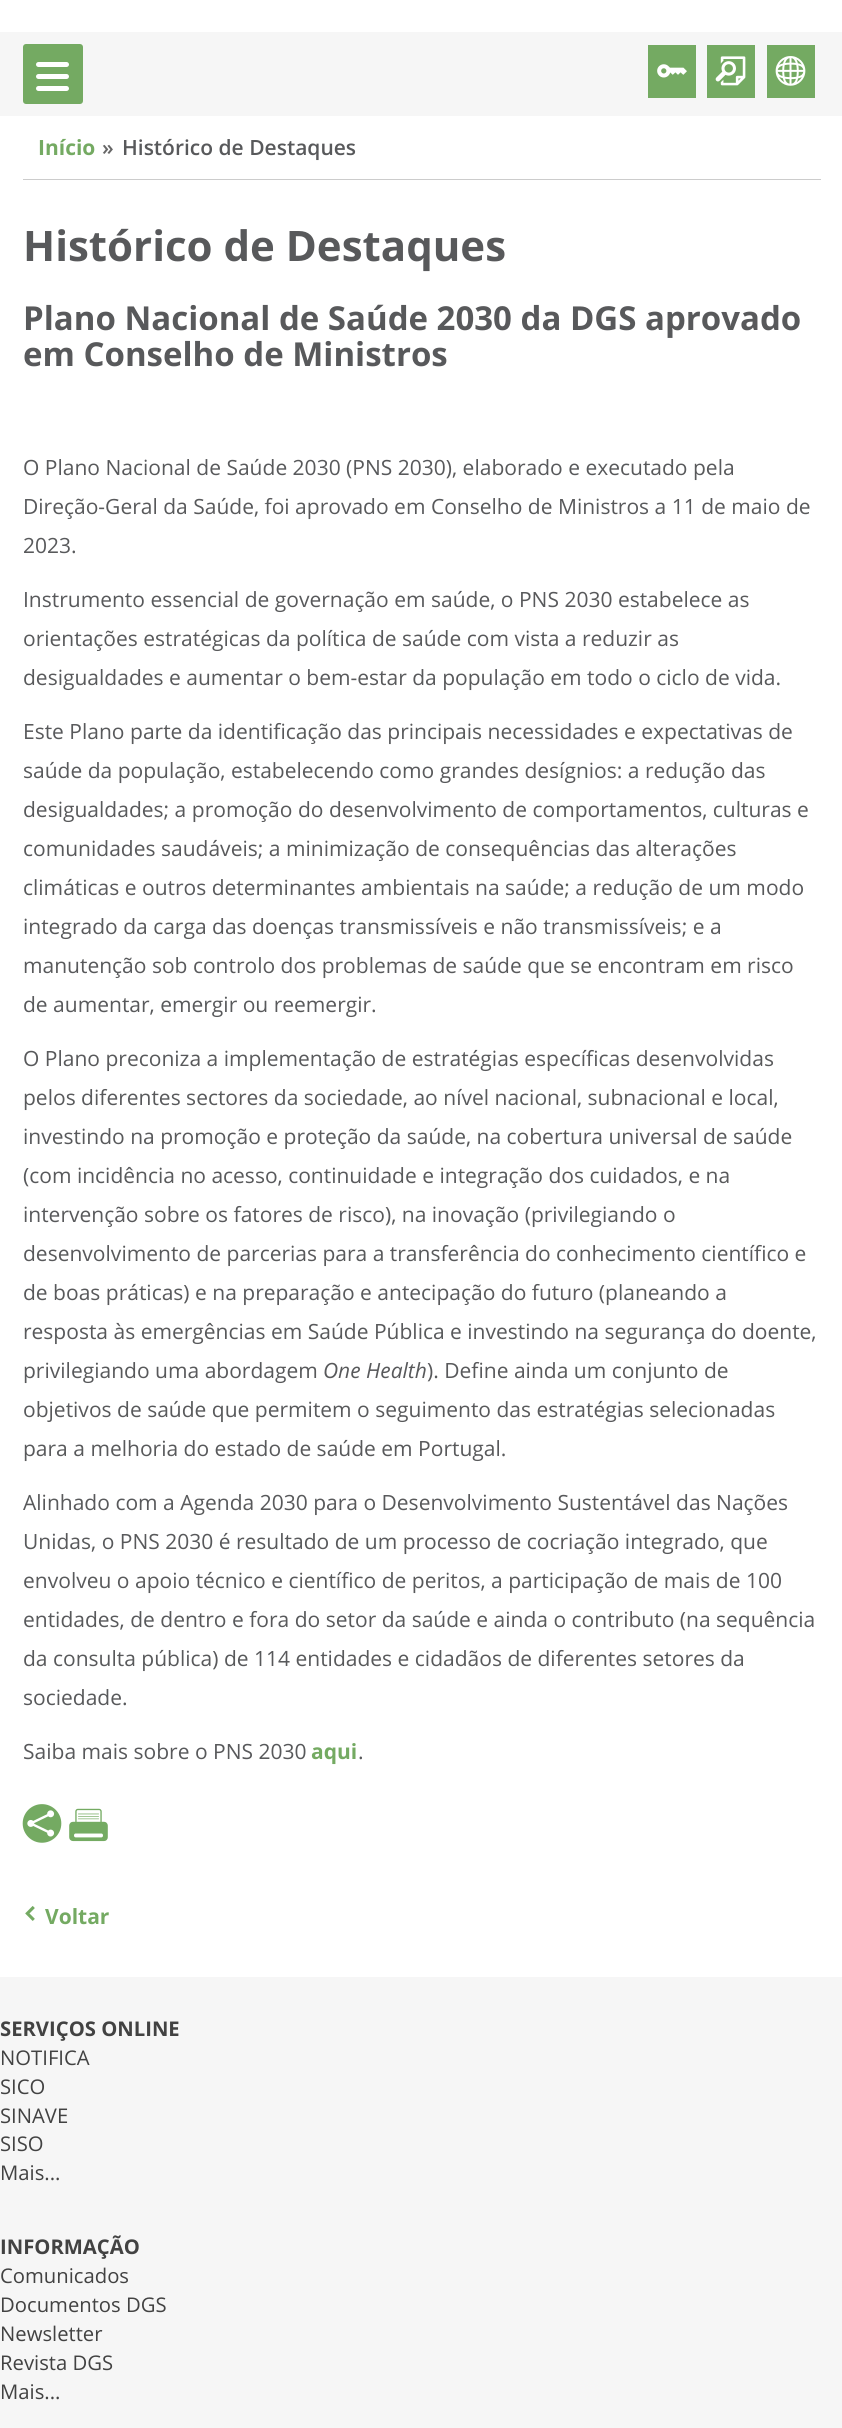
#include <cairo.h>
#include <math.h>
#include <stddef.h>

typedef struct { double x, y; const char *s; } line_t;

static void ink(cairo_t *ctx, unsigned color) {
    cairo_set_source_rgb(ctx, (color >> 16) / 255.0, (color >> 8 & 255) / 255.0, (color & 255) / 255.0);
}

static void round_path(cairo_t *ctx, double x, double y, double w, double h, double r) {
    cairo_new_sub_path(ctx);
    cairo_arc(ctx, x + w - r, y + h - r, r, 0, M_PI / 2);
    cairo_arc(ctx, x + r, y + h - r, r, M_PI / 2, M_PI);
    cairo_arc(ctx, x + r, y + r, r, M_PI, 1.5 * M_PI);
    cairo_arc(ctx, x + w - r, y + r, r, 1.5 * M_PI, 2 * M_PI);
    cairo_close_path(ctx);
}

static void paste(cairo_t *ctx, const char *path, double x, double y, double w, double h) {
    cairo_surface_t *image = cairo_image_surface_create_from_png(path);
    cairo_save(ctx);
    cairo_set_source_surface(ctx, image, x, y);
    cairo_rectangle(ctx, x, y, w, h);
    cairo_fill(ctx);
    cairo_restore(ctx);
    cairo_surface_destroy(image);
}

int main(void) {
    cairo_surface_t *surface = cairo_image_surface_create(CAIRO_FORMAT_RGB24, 842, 2428);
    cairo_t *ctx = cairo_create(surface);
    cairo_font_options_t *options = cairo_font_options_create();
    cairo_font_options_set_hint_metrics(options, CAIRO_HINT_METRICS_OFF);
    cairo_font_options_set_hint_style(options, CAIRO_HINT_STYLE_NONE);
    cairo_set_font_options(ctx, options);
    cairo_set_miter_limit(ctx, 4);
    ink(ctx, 0xFFFFFF);
    cairo_paint(ctx);
    ink(ctx, 0xF6F6F6);
    cairo_rectangle(ctx, 0, 32, 842, 84);
    cairo_fill(ctx);
    ink(ctx, 0x74AA62);
    round_path(ctx, 23, 44, 60, 60, 3);
    cairo_fill(ctx);
    ink(ctx, 0xFFFFFF);
    round_path(ctx, 36, 62, 33, 5, 2.5);
    cairo_fill(ctx);
    round_path(ctx, 36, 74, 33, 5, 2.5);
    cairo_fill(ctx);
    round_path(ctx, 36, 86, 33, 5, 2.5);
    cairo_fill(ctx);
    ink(ctx, 0x74AA62);
    cairo_rectangle(ctx, 648, 45, 48, 53);
    cairo_fill(ctx);
    paste(ctx, "media/1.png", 657, 64, 30, 14);
    cairo_rectangle(ctx, 707, 45, 48, 53);
    cairo_fill(ctx);
    paste(ctx, "media/2.png", 715, 56, 31, 30);
    cairo_rectangle(ctx, 767, 45, 48, 53);
    cairo_fill(ctx);
    paste(ctx, "media/3.png", 775, 56, 31, 30);
    ink(ctx, 0xCCCCCC);
    cairo_rectangle(ctx, 23, 179, 798, 1);
    cairo_fill(ctx);
    cairo_select_font_face(ctx, "Open Sans", CAIRO_FONT_SLANT_NORMAL, CAIRO_FONT_WEIGHT_BOLD);
    cairo_set_font_size(ctx, 21);
    ink(ctx, 0x74AA62);
    cairo_move_to(ctx, 38, 155);
    cairo_show_text(ctx, "Início");
    cairo_select_font_face(ctx, "Open Sans SemiBold", CAIRO_FONT_SLANT_NORMAL, CAIRO_FONT_WEIGHT_NORMAL);
    ink(ctx, 0x676767);
    cairo_move_to(ctx, 102, 155);
    cairo_show_text(ctx, "»");
    ink(ctx, 0x58595B);
    cairo_move_to(ctx, 122, 155);
    cairo_show_text(ctx, "Histórico de Destaques");
    cairo_select_font_face(ctx, "Open Sans", CAIRO_FONT_SLANT_NORMAL, CAIRO_FONT_WEIGHT_BOLD);
    cairo_set_font_size(ctx, 42);
    cairo_move_to(ctx, 23, 261);
    cairo_show_text(ctx, "Histórico de Destaques");
    cairo_set_font_size(ctx, 33);
    cairo_move_to(ctx, 23, 330);
    cairo_show_text(ctx, "Plano Nacional de Saúde 2030 da DGS aprovado");
    cairo_move_to(ctx, 23, 366);
    cairo_show_text(ctx, "em Conselho de Ministros");
    cairo_select_font_face(ctx, "Open Sans", CAIRO_FONT_SLANT_NORMAL, CAIRO_FONT_WEIGHT_NORMAL);
    cairo_set_font_size(ctx, 21);
    {
        static const line_t items[] = {
            {23, 475, "O Plano Nacional de Saúde 2030 (PNS 2030), elaborado e executado pela"},
            {23, 514, "Direção-Geral da Saúde, foi aprovado em Conselho de Ministros a 11 de maio de"},
            {23, 553, "2023."},
            {23, 607, "Instrumento essencial de governação em saúde, o PNS 2030 estabelece as"},
            {23, 646, "orientações estratégicas da política de saúde com vista a reduzir as"},
            {23, 685, "desigualdades e aumentar o bem-estar da população em todo o ciclo de vida."},
            {23, 739, "Este Plano parte da identificação das principais necessidades e expectativas de"},
            {23, 778, "saúde da população, estabelecendo como grandes desígnios: a redução das"},
            {23, 817, "desigualdades; a promoção do desenvolvimento de comportamentos, culturas e"},
            {23, 856, "comunidades saudáveis; a minimização de consequências das alterações"},
            {23, 895, "climáticas e outros determinantes ambientais na saúde; a redução de um modo"},
            {23, 934, "integrado da carga das doenças transmissíveis e não transmissíveis; e a"},
            {23, 973, "manutenção sob controlo dos problemas de saúde que se encontram em risco"},
            {23, 1012, "de aumentar, emergir ou reemergir."},
            {23, 1066, "O Plano preconiza a implementação de estratégias específicas desenvolvidas"},
            {23, 1105, "pelos diferentes sectores da sociedade, ao nível nacional, subnacional e local,"},
            {23, 1144, "investindo na promoção e proteção da saúde, na cobertura universal de saúde"},
            {23, 1183, "(com incidência no acesso, continuidade e integração dos cuidados, e na"},
            {23, 1222, "intervenção sobre os fatores de risco), na inovação (privilegiando o"},
            {23, 1261, "desenvolvimento de parcerias para a transferência do conhecimento científico e"},
            {23, 1300, "de boas práticas) e na preparação e antecipação do futuro (planeando a"},
            {23, 1339, "resposta às emergências em Saúde Pública e investindo na segurança do doente,"},
            {23, 1378, "privilegiando uma abordagem"},
        };
        for (size_t i = 0; i < sizeof items / sizeof *items; i++) {
            cairo_move_to(ctx, items[i].x, items[i].y);
            cairo_show_text(ctx, items[i].s);
        }
    }
    cairo_select_font_face(ctx, "Open Sans", CAIRO_FONT_SLANT_ITALIC, CAIRO_FONT_WEIGHT_NORMAL);
    cairo_move_to(ctx, 323, 1378);
    cairo_show_text(ctx, "One Health");
    cairo_select_font_face(ctx, "Open Sans", CAIRO_FONT_SLANT_NORMAL, CAIRO_FONT_WEIGHT_NORMAL);
    {
        static const line_t items[] = {
            {427, 1378, "). Define ainda um conjunto de"},
            {23, 1417, "objetivos de saúde que permitem o seguimento das estratégias selecionadas"},
            {23, 1456, "para a melhoria do estado de saúde em Portugal."},
            {23, 1510, "Alinhado com a Agenda 2030 para o Desenvolvimento Sustentável das Nações"},
            {23, 1549, "Unidas, o PNS 2030 é resultado de um processo de cocriação integrado, que"},
            {23, 1588, "envolveu o apoio técnico e científico de peritos, a participação de mais de 100"},
            {23, 1627, "entidades, de dentro e fora do setor da saúde e ainda o contributo (na sequência"},
            {23, 1666, "da consulta pública) de 114 entidades e cidadãos de diferentes setores da"},
            {23, 1705, "sociedade."},
            {23, 1759, "Saiba mais sobre o PNS 2030"},
        };
        for (size_t i = 0; i < sizeof items / sizeof *items; i++) {
            cairo_move_to(ctx, items[i].x, items[i].y);
            cairo_show_text(ctx, items[i].s);
        }
    }
    cairo_select_font_face(ctx, "Open Sans", CAIRO_FONT_SLANT_NORMAL, CAIRO_FONT_WEIGHT_BOLD);
    ink(ctx, 0x74AA62);
    cairo_move_to(ctx, 311, 1759);
    cairo_show_text(ctx, "aqui");
    cairo_select_font_face(ctx, "Open Sans", CAIRO_FONT_SLANT_NORMAL, CAIRO_FONT_WEIGHT_NORMAL);
    ink(ctx, 0x58595B);
    cairo_move_to(ctx, 358, 1759);
    cairo_show_text(ctx, ".");
    paste(ctx, "media/4.png", 22, 1804, 40, 39);
    paste(ctx, "media/5.png", 69, 1808, 39, 34);
    paste(ctx, "media/6.png", 25, 1906, 10, 15);
    cairo_select_font_face(ctx, "Open Sans", CAIRO_FONT_SLANT_NORMAL, CAIRO_FONT_WEIGHT_BOLD);
    ink(ctx, 0x74AA62);
    cairo_move_to(ctx, 45, 1924);
    cairo_show_text(ctx, "Voltar");
    ink(ctx, 0xF6F6F6);
    cairo_rectangle(ctx, 0, 1977, 842, 451);
    cairo_fill(ctx);
    cairo_set_font_size(ctx, 20.25);
    ink(ctx, 0x424242);
    cairo_move_to(ctx, 0, 2036);
    cairo_show_text(ctx, "SERVIÇOS ONLINE");
    cairo_select_font_face(ctx, "Open Sans", CAIRO_FONT_SLANT_NORMAL, CAIRO_FONT_WEIGHT_NORMAL);
    {
        static const line_t items[] = {
            {0, 2065, "NOTIFICA"},
            {0, 2094, "SICO"},
            {0, 2123, "SINAVE"},
            {0, 2151, "SISO"},
            {0, 2180, "Mais..."},
        };
        for (size_t i = 0; i < sizeof items / sizeof *items; i++) {
            cairo_move_to(ctx, items[i].x, items[i].y);
            cairo_show_text(ctx, items[i].s);
        }
    }
    cairo_select_font_face(ctx, "Open Sans", CAIRO_FONT_SLANT_NORMAL, CAIRO_FONT_WEIGHT_BOLD);
    cairo_move_to(ctx, 0, 2254);
    cairo_show_text(ctx, "INFORMAÇÃO");
    cairo_select_font_face(ctx, "Open Sans", CAIRO_FONT_SLANT_NORMAL, CAIRO_FONT_WEIGHT_NORMAL);
    {
        static const line_t items[] = {
            {0, 2283, "Comunicados"},
            {0, 2312, "Documentos DGS"},
            {0, 2341, "Newsletter"},
            {0, 2370, "Revista DGS"},
            {0, 2399, "Mais..."},
        };
        for (size_t i = 0; i < sizeof items / sizeof *items; i++) {
            cairo_move_to(ctx, items[i].x, items[i].y);
            cairo_show_text(ctx, items[i].s);
        }
    }
    cairo_surface_write_to_png(surface, "image.png");
    cairo_font_options_destroy(options);
    cairo_destroy(ctx);
    cairo_surface_destroy(surface);
    return 0;
}
